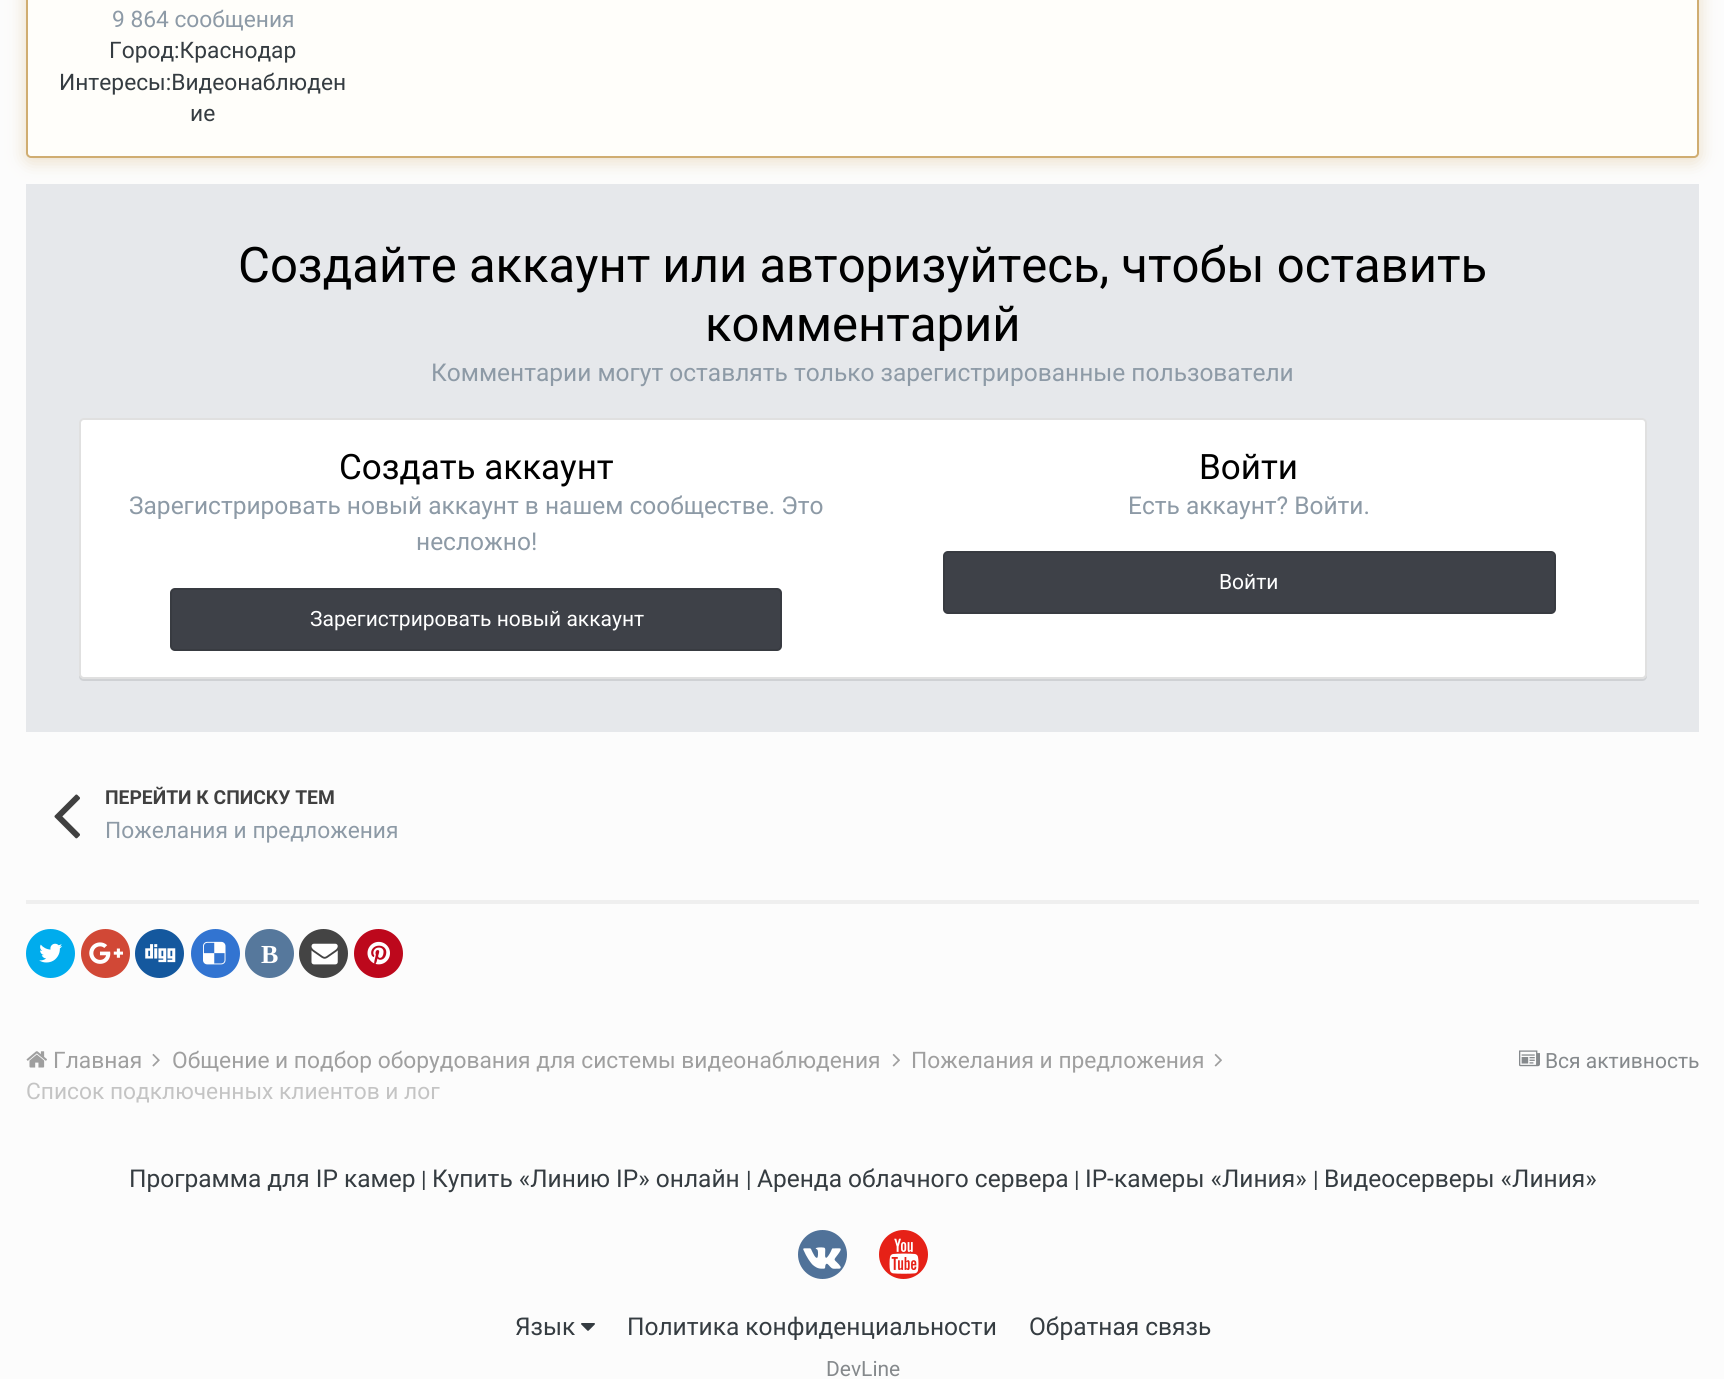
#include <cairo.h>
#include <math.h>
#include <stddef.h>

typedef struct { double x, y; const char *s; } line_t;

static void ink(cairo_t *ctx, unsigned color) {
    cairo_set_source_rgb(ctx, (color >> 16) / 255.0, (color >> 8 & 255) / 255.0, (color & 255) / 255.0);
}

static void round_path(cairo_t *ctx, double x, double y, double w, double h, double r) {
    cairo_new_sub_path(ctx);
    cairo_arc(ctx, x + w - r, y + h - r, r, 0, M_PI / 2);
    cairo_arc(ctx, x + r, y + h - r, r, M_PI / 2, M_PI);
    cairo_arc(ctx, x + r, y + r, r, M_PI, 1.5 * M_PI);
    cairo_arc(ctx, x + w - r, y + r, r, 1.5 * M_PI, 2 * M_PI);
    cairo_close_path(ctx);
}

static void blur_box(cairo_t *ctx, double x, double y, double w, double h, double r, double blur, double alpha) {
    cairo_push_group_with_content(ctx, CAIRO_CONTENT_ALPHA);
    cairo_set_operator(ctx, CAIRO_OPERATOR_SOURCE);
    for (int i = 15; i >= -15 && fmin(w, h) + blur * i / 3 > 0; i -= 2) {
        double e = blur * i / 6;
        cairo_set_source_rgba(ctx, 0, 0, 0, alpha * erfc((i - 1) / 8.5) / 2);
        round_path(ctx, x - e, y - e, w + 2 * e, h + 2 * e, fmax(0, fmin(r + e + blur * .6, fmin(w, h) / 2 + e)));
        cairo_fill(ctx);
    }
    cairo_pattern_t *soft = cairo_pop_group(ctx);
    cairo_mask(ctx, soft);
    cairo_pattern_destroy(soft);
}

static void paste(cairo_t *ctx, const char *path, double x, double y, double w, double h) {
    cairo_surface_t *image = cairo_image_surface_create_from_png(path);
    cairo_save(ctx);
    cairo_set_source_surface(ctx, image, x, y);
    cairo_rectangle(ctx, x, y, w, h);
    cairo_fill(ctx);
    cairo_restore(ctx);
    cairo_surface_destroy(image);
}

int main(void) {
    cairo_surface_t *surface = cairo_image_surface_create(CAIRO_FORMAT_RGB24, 1724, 1379);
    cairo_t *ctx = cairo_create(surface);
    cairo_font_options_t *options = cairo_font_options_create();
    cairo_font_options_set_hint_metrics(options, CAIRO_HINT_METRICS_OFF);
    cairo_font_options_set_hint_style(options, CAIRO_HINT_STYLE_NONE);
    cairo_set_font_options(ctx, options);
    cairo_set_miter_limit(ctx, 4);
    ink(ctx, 0xFCFCFC);
    cairo_paint(ctx);
    ink(ctx, 0xE6E8EB);
    cairo_rectangle(ctx, 26, 184, 1673, 548);
    cairo_fill(ctx);
    ink(ctx, 0xD0AD71);
    blur_box(ctx, 26, -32, 1673, 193, 5, 9, 0.4);
    ink(ctx, 0xFFFEFA);
    round_path(ctx, 27, -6, 1671, 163, 4);
    cairo_fill_preserve(ctx);
    ink(ctx, 0xD0AD71);
    cairo_stroke(ctx);
    cairo_select_font_face(ctx, "Roboto", CAIRO_FONT_SLANT_NORMAL, CAIRO_FONT_WEIGHT_NORMAL);
    cairo_set_font_size(ctx, 22.75);
    ink(ctx, 0x8D9AA6);
    cairo_move_to(ctx, 112, 27);
    cairo_show_text(ctx, "9 864 сообщения");
    ink(ctx, 0x353C41);
    {
        static const line_t items[] = {
            {109, 58, "Город:Краснодар"},
            {59, 90, "Интересы:Видеонаблюден"},
            {190, 121, "ие"},
        };
        for (size_t i = 0; i < sizeof items / sizeof *items; i++) {
            cairo_move_to(ctx, items[i].x, items[i].y);
            cairo_show_text(ctx, items[i].s);
        }
    }
    cairo_set_font_size(ctx, 49);
    ink(ctx, 0x000000);
    cairo_move_to(ctx, 238, 282);
    cairo_show_text(ctx, "Создайте аккаунт или авторизуйтесь, чтобы оставить");
    cairo_move_to(ctx, 705, 341);
    cairo_show_text(ctx, "комментарий");
    cairo_set_font_size(ctx, 24.5);
    ink(ctx, 0x8D9AA6);
    cairo_move_to(ctx, 431, 381);
    cairo_show_text(ctx, "Комментарии могут оставлять только зарегистрированные пользователи");
    ink(ctx, 0xCFD1D4);
    cairo_new_path(ctx);
    cairo_move_to(ctx, 79, 675);
    cairo_line_to(ctx, 79, 676);
    cairo_curve_to(ctx, 79, 679, 81, 681, 84, 681);
    cairo_line_to(ctx, 1642, 681);
    cairo_curve_to(ctx, 1645, 681, 1647, 679, 1647, 676);
    cairo_line_to(ctx, 1647, 423);
    cairo_line_to(ctx, 1647, 674);
    cairo_curve_to(ctx, 1647, 677, 1644, 679, 1642, 679);
    cairo_line_to(ctx, 84, 679);
    cairo_curve_to(ctx, 82, 679, 80, 677, 79, 675);
    cairo_close_path(ctx);
    cairo_fill(ctx);
    ink(ctx, 0xFFFFFF);
    round_path(ctx, 80, 419, 1566, 259, 4);
    cairo_fill_preserve(ctx);
    ink(ctx, 0xE0E0E0);
    cairo_stroke(ctx);
    cairo_set_font_size(ctx, 35);
    ink(ctx, 0x000000);
    cairo_move_to(ctx, 339, 479);
    cairo_show_text(ctx, "Создать аккаунт");
    cairo_set_font_size(ctx, 24.5);
    ink(ctx, 0x8D9AA6);
    cairo_move_to(ctx, 129, 514);
    cairo_show_text(ctx, "Зарегистрировать новый аккаунт в нашем сообществе. Это");
    cairo_move_to(ctx, 416, 550);
    cairo_show_text(ctx, "несложно!");
    ink(ctx, 0x3E4148);
    round_path(ctx, 170, 588, 612, 63, 5);
    cairo_fill(ctx);
    round_path(ctx, 171, 589, 610, 61, 4);
    cairo_set_source_rgba(ctx, 0, 0, 0, 0.1);
    cairo_stroke(ctx);
    cairo_set_font_size(ctx, 21);
    ink(ctx, 0xFFFFFF);
    cairo_move_to(ctx, 310, 626);
    cairo_show_text(ctx, "Зарегистрировать новый аккаунт");
    cairo_set_font_size(ctx, 35);
    ink(ctx, 0x000000);
    cairo_move_to(ctx, 1199, 479);
    cairo_show_text(ctx, "Войти");
    cairo_set_font_size(ctx, 24.5);
    ink(ctx, 0x8D9AA6);
    cairo_move_to(ctx, 1128, 514);
    cairo_show_text(ctx, "Есть аккаунт? Войти.");
    ink(ctx, 0x3E4148);
    round_path(ctx, 943, 551, 613, 63, 5);
    cairo_fill(ctx);
    round_path(ctx, 944, 552, 611, 61, 4);
    cairo_set_source_rgba(ctx, 0, 0, 0, 0.1);
    cairo_stroke(ctx);
    cairo_set_font_size(ctx, 21);
    ink(ctx, 0xFFFFFF);
    cairo_move_to(ctx, 1219, 589);
    cairo_show_text(ctx, "Войти");
    paste(ctx, "media/1.png", 54, 794, 26, 45);
    cairo_select_font_face(ctx, "Roboto", CAIRO_FONT_SLANT_NORMAL, CAIRO_FONT_WEIGHT_BOLD);
    cairo_set_font_size(ctx, 19.25);
    ink(ctx, 0x404040);
    cairo_move_to(ctx, 105, 804);
    cairo_show_text(ctx, "ПЕРЕЙТИ К СПИСКУ ТЕМ");
    cairo_select_font_face(ctx, "Roboto", CAIRO_FONT_SLANT_NORMAL, CAIRO_FONT_WEIGHT_NORMAL);
    cairo_set_font_size(ctx, 22.75);
    ink(ctx, 0x8D9AA6);
    cairo_move_to(ctx, 105, 838);
    cairo_show_text(ctx, "Пожелания и предложения");
    ink(ctx, 0xEFEFEF);
    cairo_rectangle(ctx, 26, 900, 1673, 4);
    cairo_fill(ctx);
    ink(ctx, 0x00ACED);
    cairo_arc(ctx, 50.5, 953.5, 24.5, 0, 2 * M_PI);
    cairo_fill(ctx);
    paste(ctx, "media/2.png", 39, 943, 24, 20);
    ink(ctx, 0xD14836);
    cairo_arc(ctx, 105.5, 953.5, 24.5, 0, 2 * M_PI);
    cairo_fill(ctx);
    paste(ctx, "media/3.png", 89, 942, 34, 22);
    ink(ctx, 0x14589E);
    cairo_arc(ctx, 159.5, 953.5, 24.5, 0, 2 * M_PI);
    cairo_fill(ctx);
    paste(ctx, "media/4.png", 145, 944, 31, 19);
    ink(ctx, 0x3274D1);
    cairo_arc(ctx, 215.5, 953.5, 24.5, 0, 2 * M_PI);
    cairo_fill(ctx);
    paste(ctx, "media/5.png", 203, 941, 23, 24);
    ink(ctx, 0x56789C);
    cairo_arc(ctx, 269.5, 953.5, 24.5, 0, 2 * M_PI);
    cairo_fill(ctx);
    cairo_select_font_face(ctx, "Liberation Serif", CAIRO_FONT_SLANT_NORMAL, CAIRO_FONT_WEIGHT_BOLD);
    cairo_set_font_size(ctx, 26);
    ink(ctx, 0xFFFFFF);
    cairo_move_to(ctx, 261, 963);
    cairo_show_text(ctx, "В");
    ink(ctx, 0x444444);
    cairo_new_path(ctx);
    cairo_arc(ctx, 323.5, 953.5, 24.5, 0, 2 * M_PI);
    cairo_fill(ctx);
    paste(ctx, "media/6.png", 311, 943, 27, 22);
    ink(ctx, 0xBD081C);
    cairo_arc(ctx, 378.5, 953.5, 24.5, 0, 2 * M_PI);
    cairo_fill(ctx);
    paste(ctx, "media/7.png", 367, 941, 23, 24);
    paste(ctx, "media/8.png", 26, 1051, 21, 17);
    cairo_select_font_face(ctx, "Roboto", CAIRO_FONT_SLANT_NORMAL, CAIRO_FONT_WEIGHT_NORMAL);
    cairo_set_font_size(ctx, 22.75);
    ink(ctx, 0x9F9F9F);
    cairo_move_to(ctx, 53, 1068);
    cairo_show_text(ctx, "Главная");
    paste(ctx, "media/9.png", 152, 1053, 8, 14);
    cairo_move_to(ctx, 172, 1068);
    cairo_show_text(ctx, "Общение и подбор оборудования для системы видеонаблюдения");
    paste(ctx, "media/10.png", 892, 1053, 8, 14);
    cairo_move_to(ctx, 911, 1068);
    cairo_show_text(ctx, "Пожелания и предложения");
    paste(ctx, "media/10.png", 1214, 1053, 8, 14);
    ink(ctx, 0xC4C4C4);
    cairo_move_to(ctx, 26, 1099);
    cairo_show_text(ctx, "Список подключенных клиентов и лог");
    paste(ctx, "media/11.png", 1519, 1050, 21, 17);
    cairo_set_font_size(ctx, 21);
    ink(ctx, 0x85898C);
    cairo_move_to(ctx, 1545, 1068);
    cairo_show_text(ctx, "Вся активность");
    cairo_set_font_size(ctx, 24.5);
    ink(ctx, 0x353C41);
    cairo_move_to(ctx, 129, 1187);
    cairo_show_text(ctx, "Программа для IP камер");
    cairo_set_font_size(ctx, 22.75);
    cairo_move_to(ctx, 421, 1187);
    cairo_show_text(ctx, "|");
    cairo_set_font_size(ctx, 24.5);
    cairo_move_to(ctx, 432, 1187);
    cairo_show_text(ctx, "Купить «Линию IP» онлайн");
    cairo_set_font_size(ctx, 22.75);
    cairo_move_to(ctx, 746, 1187);
    cairo_show_text(ctx, "|");
    cairo_set_font_size(ctx, 24.5);
    cairo_move_to(ctx, 757, 1187);
    cairo_show_text(ctx, "Аренда облачного сервера");
    cairo_set_font_size(ctx, 22.75);
    cairo_move_to(ctx, 1074, 1187);
    cairo_show_text(ctx, "|");
    cairo_set_font_size(ctx, 24.5);
    cairo_move_to(ctx, 1085, 1187);
    cairo_show_text(ctx, "IP-камеры «Линия»");
    cairo_set_font_size(ctx, 22.75);
    cairo_move_to(ctx, 1313, 1187);
    cairo_show_text(ctx, "|");
    cairo_set_font_size(ctx, 24.5);
    cairo_move_to(ctx, 1324, 1187);
    cairo_show_text(ctx, "Видеосерверы «Линия»");
    ink(ctx, 0x507299);
    cairo_new_path(ctx);
    cairo_arc(ctx, 822.5, 1254.5, 24.5, 0, 2 * M_PI);
    cairo_fill(ctx);
    paste(ctx, "media/12.png", 803, 1247, 38, 22);
    ink(ctx, 0xE62117);
    cairo_arc(ctx, 903.5, 1254.5, 24.5, 0, 2 * M_PI);
    cairo_fill(ctx);
    paste(ctx, "media/13.png", 889, 1238, 30, 36);
    ink(ctx, 0x353C41);
    cairo_move_to(ctx, 515, 1335);
    cairo_show_text(ctx, "Язык");
    paste(ctx, "media/14.png", 581, 1323, 14, 8);
    cairo_move_to(ctx, 627, 1335);
    cairo_show_text(ctx, "Политика конфиденциальности");
    cairo_move_to(ctx, 1029, 1335);
    cairo_show_text(ctx, "Обратная связь");
    cairo_set_font_size(ctx, 21);
    ink(ctx, 0x85898C);
    cairo_move_to(ctx, 826, 1376);
    cairo_show_text(ctx, "DevLine");
    cairo_surface_write_to_png(surface, "image.png");
    cairo_font_options_destroy(options);
    cairo_destroy(ctx);
    cairo_surface_destroy(surface);
    return 0;
}
